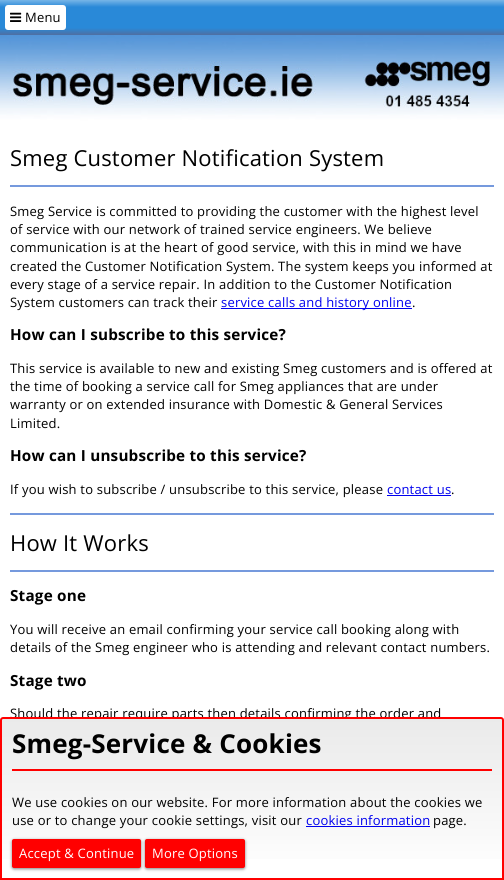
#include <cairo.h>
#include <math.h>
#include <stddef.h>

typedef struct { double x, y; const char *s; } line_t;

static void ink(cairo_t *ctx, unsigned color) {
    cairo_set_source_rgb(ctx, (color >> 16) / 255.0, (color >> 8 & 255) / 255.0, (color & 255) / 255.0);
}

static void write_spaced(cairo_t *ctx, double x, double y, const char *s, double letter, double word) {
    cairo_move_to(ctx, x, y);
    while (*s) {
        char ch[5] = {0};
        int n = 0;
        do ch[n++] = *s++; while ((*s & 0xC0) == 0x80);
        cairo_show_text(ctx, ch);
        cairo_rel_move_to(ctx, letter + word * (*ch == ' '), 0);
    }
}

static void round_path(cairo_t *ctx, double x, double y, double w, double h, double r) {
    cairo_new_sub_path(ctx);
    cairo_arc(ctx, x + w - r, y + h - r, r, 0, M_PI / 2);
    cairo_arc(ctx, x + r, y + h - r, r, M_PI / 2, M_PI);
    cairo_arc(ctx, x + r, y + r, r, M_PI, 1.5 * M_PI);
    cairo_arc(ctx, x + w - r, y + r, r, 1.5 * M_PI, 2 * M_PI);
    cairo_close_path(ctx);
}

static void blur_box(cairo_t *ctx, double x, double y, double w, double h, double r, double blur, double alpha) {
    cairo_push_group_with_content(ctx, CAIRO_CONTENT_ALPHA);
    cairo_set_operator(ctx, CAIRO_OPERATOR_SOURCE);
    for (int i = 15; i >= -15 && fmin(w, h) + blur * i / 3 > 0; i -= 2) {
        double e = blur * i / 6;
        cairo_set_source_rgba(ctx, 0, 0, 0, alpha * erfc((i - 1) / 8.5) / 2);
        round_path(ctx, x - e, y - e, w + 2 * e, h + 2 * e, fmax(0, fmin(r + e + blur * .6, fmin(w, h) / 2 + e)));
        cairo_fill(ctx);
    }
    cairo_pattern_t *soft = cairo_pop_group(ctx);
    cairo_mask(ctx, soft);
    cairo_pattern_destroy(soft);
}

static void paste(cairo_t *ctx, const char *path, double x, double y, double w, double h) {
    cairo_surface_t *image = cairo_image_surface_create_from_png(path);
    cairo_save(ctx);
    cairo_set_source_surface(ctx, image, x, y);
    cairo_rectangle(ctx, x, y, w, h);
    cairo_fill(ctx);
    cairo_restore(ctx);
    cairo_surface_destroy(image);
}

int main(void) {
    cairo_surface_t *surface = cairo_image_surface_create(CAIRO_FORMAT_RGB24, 504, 880);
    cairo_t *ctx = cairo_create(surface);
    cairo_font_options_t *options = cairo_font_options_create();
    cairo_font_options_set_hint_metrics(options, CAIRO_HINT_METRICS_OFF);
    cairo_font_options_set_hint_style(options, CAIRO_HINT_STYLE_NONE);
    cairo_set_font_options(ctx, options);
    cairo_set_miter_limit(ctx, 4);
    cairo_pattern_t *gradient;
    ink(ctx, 0xFFFFFF);
    cairo_paint(ctx);
    gradient = cairo_pattern_create_linear(252, 0, 252, 35);
    cairo_pattern_add_color_stop_rgba(gradient, 0, 0.463, 0.71, 0.906, 1);
    cairo_pattern_add_color_stop_rgba(gradient, 0.2, 0.161, 0.537, 0.847, 1);
    cairo_pattern_add_color_stop_rgba(gradient, 0.8, 0.161, 0.537, 0.847, 1);
    cairo_pattern_add_color_stop_rgba(gradient, 1, 0.314, 0.435, 0.631, 1);
    cairo_set_source(ctx, gradient);
    cairo_pattern_destroy(gradient);
    cairo_rectangle(ctx, 0, 0, 504, 35);
    cairo_fill(ctx);
    ink(ctx, 0xFFFFFF);
    round_path(ctx, 5, 5, 61, 25, 3);
    cairo_fill(ctx);
    paste(ctx, "media/1.png", 10, 12, 12, 10);
    cairo_select_font_face(ctx, "Open Sans", CAIRO_FONT_SLANT_NORMAL, CAIRO_FONT_WEIGHT_NORMAL);
    cairo_set_font_size(ctx, 13);
    ink(ctx, 0x000000);
    write_spaced(ctx, 25, 22, "Menu", 0.2, 0);
    paste(ctx, "media/2.png", 0, 35, 504, 100);
    ink(ctx, 0x7599DD);
    cairo_rectangle(ctx, 10, 185, 484, 2);
    cairo_fill(ctx);
    cairo_set_font_size(ctx, 22);
    ink(ctx, 0x000000);
    write_spaced(ctx, 10, 166, "Smeg Customer Notification System", 0.2, 0);
    cairo_set_font_size(ctx, 13);
    {
        static const line_t items[] = {
            {10, 216, "Smeg Service is committed to providing the customer with the highest level"},
            {10, 234, "of service with our network of trained service engineers. We believe"},
            {10, 252, "communication is at the heart of good service, with this in mind we have"},
            {10, 271, "created the Customer Notification System. The system keeps you informed at"},
            {10, 289, "every stage of a service repair. In addition to the Customer Notification"},
            {10, 307, "System customers can track their"},
        };
        for (size_t i = 0; i < sizeof items / sizeof *items; i++) {
            write_spaced(ctx, items[i].x, items[i].y, items[i].s, 0.2, 0);
        }
    }
    ink(ctx, 0x0000EE);
    cairo_rectangle(ctx, 221, 308, 191, 1);
    cairo_fill(ctx);
    write_spaced(ctx, 221, 307, "service calls and history online", 0.2, 0);
    ink(ctx, 0x000000);
    write_spaced(ctx, 412, 307, ".", 0.2, 0);
    cairo_select_font_face(ctx, "Open Sans", CAIRO_FONT_SLANT_NORMAL, CAIRO_FONT_WEIGHT_BOLD);
    cairo_set_font_size(ctx, 15.25);
    write_spaced(ctx, 10, 340, "How can I subscribe to this service?", 0.2, 0);
    cairo_select_font_face(ctx, "Open Sans", CAIRO_FONT_SLANT_NORMAL, CAIRO_FONT_WEIGHT_NORMAL);
    cairo_set_font_size(ctx, 13);
    {
        static const line_t items[] = {
            {10, 373, "This service is available to new and existing Smeg customers and is offered at"},
            {10, 391, "the time of booking a service call for Smeg appliances that are under"},
            {10, 409, "warranty or on extended insurance with Domestic & General Services"},
            {10, 428, "Limited."},
        };
        for (size_t i = 0; i < sizeof items / sizeof *items; i++) {
            write_spaced(ctx, items[i].x, items[i].y, items[i].s, 0.2, 0);
        }
    }
    cairo_select_font_face(ctx, "Open Sans", CAIRO_FONT_SLANT_NORMAL, CAIRO_FONT_WEIGHT_BOLD);
    cairo_set_font_size(ctx, 15.25);
    write_spaced(ctx, 10, 461, "How can I unsubscribe to this service?", 0.2, 0);
    cairo_select_font_face(ctx, "Open Sans", CAIRO_FONT_SLANT_NORMAL, CAIRO_FONT_WEIGHT_NORMAL);
    cairo_set_font_size(ctx, 13);
    write_spaced(ctx, 10, 494, "If you wish to subscribe / unsubscribe to this service, please", 0.2, 0);
    ink(ctx, 0x0000EE);
    write_spaced(ctx, 387, 494, "contact us", 0.2, 0);
    cairo_rectangle(ctx, 387, 495, 64, 1);
    cairo_fill(ctx);
    ink(ctx, 0x000000);
    write_spaced(ctx, 451, 494, ".", 0.2, 0);
    ink(ctx, 0x7599DD);
    cairo_rectangle(ctx, 10, 513, 484, 2);
    cairo_fill(ctx);
    cairo_rectangle(ctx, 10, 570, 484, 2);
    cairo_fill(ctx);
    cairo_set_font_size(ctx, 22);
    ink(ctx, 0x000000);
    write_spaced(ctx, 10, 551, "How It Works", 0.2, 0);
    cairo_select_font_face(ctx, "Open Sans", CAIRO_FONT_SLANT_NORMAL, CAIRO_FONT_WEIGHT_BOLD);
    cairo_set_font_size(ctx, 15.25);
    write_spaced(ctx, 10, 601, "Stage one", 0.2, 0);
    cairo_select_font_face(ctx, "Open Sans", CAIRO_FONT_SLANT_NORMAL, CAIRO_FONT_WEIGHT_NORMAL);
    cairo_set_font_size(ctx, 13);
    write_spaced(ctx, 10, 634, "You will receive an email confirming your service call booking along with", 0.2, 0);
    write_spaced(ctx, 10, 652, "details of the Smeg engineer who is attending and relevant contact numbers.", 0.2, 0);
    cairo_select_font_face(ctx, "Open Sans", CAIRO_FONT_SLANT_NORMAL, CAIRO_FONT_WEIGHT_BOLD);
    cairo_set_font_size(ctx, 15.25);
    write_spaced(ctx, 10, 686, "Stage two", 0.2, 0);
    cairo_select_font_face(ctx, "Open Sans", CAIRO_FONT_SLANT_NORMAL, CAIRO_FONT_WEIGHT_NORMAL);
    cairo_set_font_size(ctx, 13);
    write_spaced(ctx, 10, 718, "Should the repair require parts then details confirming the order and", 0.2, 0);
    gradient = cairo_pattern_create_linear(252, 719, 252, 878);
    cairo_pattern_add_color_stop_rgba(gradient, 0, 0.918, 0.918, 0.918, 1);
    cairo_pattern_add_color_stop_rgba(gradient, 1, 1, 1, 1, 1);
    cairo_set_source(ctx, gradient);
    cairo_pattern_destroy(gradient);
    cairo_rectangle(ctx, 0, 719, 504, 140);
    cairo_fill(ctx);
    cairo_new_path(ctx);
    cairo_move_to(ctx, 3, 718);
    cairo_line_to(ctx, 501, 718);
    cairo_curve_to(ctx, 502, 718, 503, 719, 503, 720);
    cairo_line_to(ctx, 503, 879);
    cairo_line_to(ctx, 1, 879);
    cairo_line_to(ctx, 1, 720);
    cairo_curve_to(ctx, 1, 719, 2, 718, 3, 718);
    cairo_close_path(ctx);
    ink(ctx, 0xFF0000);
    cairo_stroke(ctx);
    cairo_rectangle(ctx, 12, 769, 480, 2);
    cairo_fill(ctx);
    cairo_select_font_face(ctx, "Open Sans", CAIRO_FONT_SLANT_NORMAL, CAIRO_FONT_WEIGHT_BOLD);
    cairo_set_font_size(ctx, 26);
    ink(ctx, 0x000000);
    write_spaced(ctx, 12, 753, "Smeg-Service & Cookies", 0.2, 0);
    cairo_select_font_face(ctx, "Open Sans", CAIRO_FONT_SLANT_NORMAL, CAIRO_FONT_WEIGHT_NORMAL);
    cairo_set_font_size(ctx, 13);
    write_spaced(ctx, 12, 807, "We use cookies on our website. For more information about the cookies we", 0.2, 0);
    write_spaced(ctx, 12, 825, "use or to change your cookie settings, visit our", 0.2, 0);
    ink(ctx, 0x0000EE);
    write_spaced(ctx, 306, 825, "cookies information", 0.2, 0);
    cairo_rectangle(ctx, 306, 826, 124, 1);
    cairo_fill(ctx);
    ink(ctx, 0x000000);
    write_spaced(ctx, 433, 825, "page.", 0.2, 0);
    ink(ctx, 0x000000);
    blur_box(ctx, 12, 840, 129, 29, 2, 1.5, 0.5);
    ink(ctx, 0xFF0000);
    round_path(ctx, 12, 839, 129, 29, 2);
    cairo_fill(ctx);
    ink(ctx, 0xFFFFFF);
    write_spaced(ctx, 19, 858, "Accept & Continue", 0.2, 0);
    ink(ctx, 0x000000);
    blur_box(ctx, 145, 840, 100, 29, 2, 1.5, 0.5);
    ink(ctx, 0xFF0000);
    round_path(ctx, 145, 839, 100, 29, 2);
    cairo_fill(ctx);
    ink(ctx, 0xFFFFFF);
    write_spaced(ctx, 152, 858, "More Options", 0.2, 0);
    cairo_surface_write_to_png(surface, "image.png");
    cairo_font_options_destroy(options);
    cairo_destroy(ctx);
    cairo_surface_destroy(surface);
    return 0;
}
